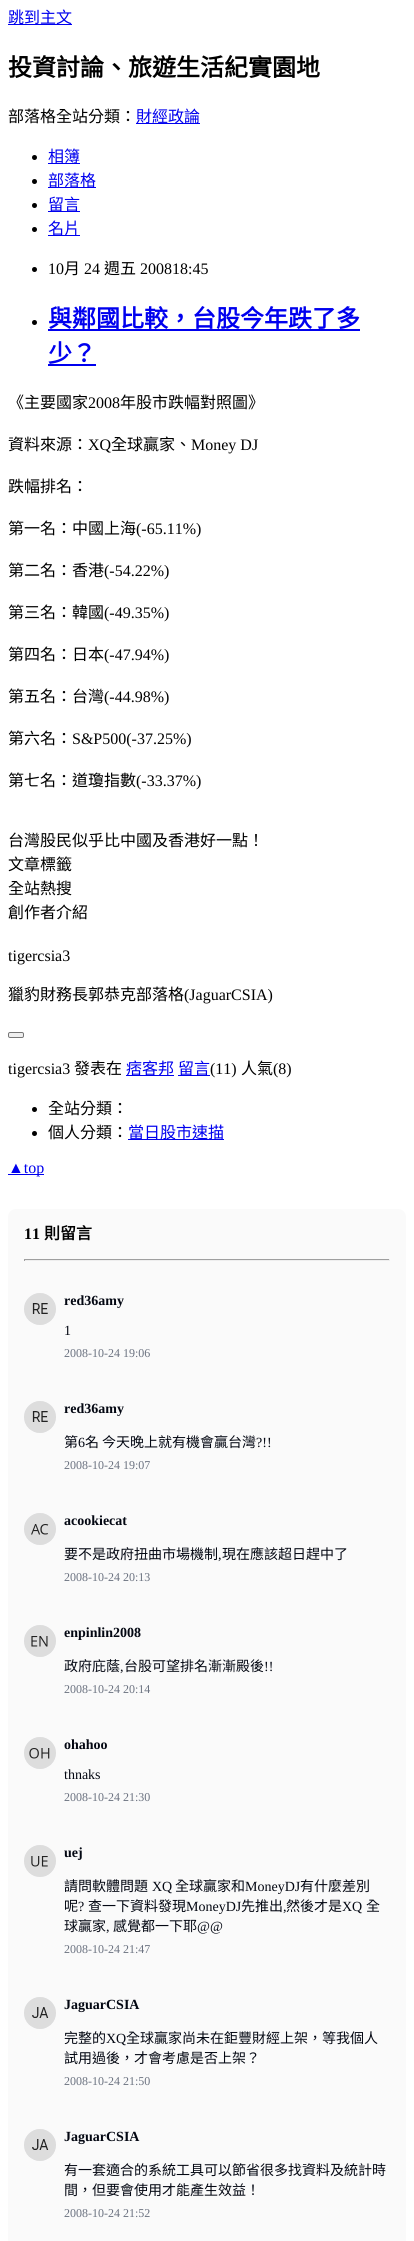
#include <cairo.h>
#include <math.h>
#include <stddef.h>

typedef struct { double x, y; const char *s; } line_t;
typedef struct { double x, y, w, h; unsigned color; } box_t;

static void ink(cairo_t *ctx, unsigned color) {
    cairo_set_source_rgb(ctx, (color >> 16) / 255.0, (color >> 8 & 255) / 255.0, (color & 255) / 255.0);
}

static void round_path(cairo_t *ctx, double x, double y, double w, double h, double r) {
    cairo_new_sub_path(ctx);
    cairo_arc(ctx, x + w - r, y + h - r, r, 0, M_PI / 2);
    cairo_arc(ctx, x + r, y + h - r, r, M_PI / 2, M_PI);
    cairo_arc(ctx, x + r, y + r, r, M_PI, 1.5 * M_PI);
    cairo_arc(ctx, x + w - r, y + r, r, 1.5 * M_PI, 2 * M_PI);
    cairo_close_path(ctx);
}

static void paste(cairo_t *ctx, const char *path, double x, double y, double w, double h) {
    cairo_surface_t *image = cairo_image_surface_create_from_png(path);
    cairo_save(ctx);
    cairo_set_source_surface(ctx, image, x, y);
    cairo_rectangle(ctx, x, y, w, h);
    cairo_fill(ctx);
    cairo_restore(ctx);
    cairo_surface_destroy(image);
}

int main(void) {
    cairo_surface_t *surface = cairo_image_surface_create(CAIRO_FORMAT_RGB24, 414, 2241);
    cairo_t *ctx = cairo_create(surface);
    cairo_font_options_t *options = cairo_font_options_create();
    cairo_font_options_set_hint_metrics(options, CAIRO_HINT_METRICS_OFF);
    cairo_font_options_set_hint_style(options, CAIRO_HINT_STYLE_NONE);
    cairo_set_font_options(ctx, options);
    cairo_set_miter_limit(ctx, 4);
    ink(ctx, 0xFFFFFF);
    cairo_paint(ctx);
    ink(ctx, 0x0000EE);
    cairo_rectangle(ctx, 8, 24, 64, 1);
    cairo_fill(ctx);
    cairo_select_font_face(ctx, "Noto Sans CJK TC", CAIRO_FONT_SLANT_NORMAL, CAIRO_FONT_WEIGHT_NORMAL);
    cairo_set_font_size(ctx, 16);
    cairo_move_to(ctx, 8, 23);
    cairo_show_text(ctx, "跳到主文");
    cairo_select_font_face(ctx, "Noto Sans CJK TC", CAIRO_FONT_SLANT_NORMAL, CAIRO_FONT_WEIGHT_BOLD);
    cairo_set_font_size(ctx, 24);
    ink(ctx, 0x000000);
    cairo_move_to(ctx, 8, 76);
    cairo_show_text(ctx, "投資討論、旅遊生活紀實園地");
    cairo_select_font_face(ctx, "Noto Sans CJK TC", CAIRO_FONT_SLANT_NORMAL, CAIRO_FONT_WEIGHT_NORMAL);
    cairo_set_font_size(ctx, 16);
    cairo_move_to(ctx, 8, 122);
    cairo_show_text(ctx, "部落格全站分類：");
    ink(ctx, 0x0000EE);
    cairo_rectangle(ctx, 136, 123, 64, 1);
    cairo_fill(ctx);
    cairo_move_to(ctx, 136, 122);
    cairo_show_text(ctx, "財經政論");
    ink(ctx, 0x000000);
    cairo_new_path(ctx);
    cairo_arc(ctx, 34.5, 157.5, 2.5, 0, 2 * M_PI);
    cairo_fill(ctx);
    ink(ctx, 0x0000EE);
    cairo_rectangle(ctx, 48, 163, 32, 1);
    cairo_fill(ctx);
    cairo_move_to(ctx, 48, 162);
    cairo_show_text(ctx, "相簿");
    ink(ctx, 0x000000);
    cairo_new_path(ctx);
    cairo_arc(ctx, 34.5, 181.5, 2.5, 0, 2 * M_PI);
    cairo_fill(ctx);
    ink(ctx, 0x0000EE);
    cairo_rectangle(ctx, 48, 187, 48, 1);
    cairo_fill(ctx);
    cairo_move_to(ctx, 48, 186);
    cairo_show_text(ctx, "部落格");
    ink(ctx, 0x000000);
    cairo_new_path(ctx);
    cairo_arc(ctx, 34.5, 205.5, 2.5, 0, 2 * M_PI);
    cairo_fill(ctx);
    ink(ctx, 0x0000EE);
    cairo_rectangle(ctx, 48, 211, 32, 1);
    cairo_fill(ctx);
    cairo_move_to(ctx, 48, 210);
    cairo_show_text(ctx, "留言");
    ink(ctx, 0x000000);
    cairo_new_path(ctx);
    cairo_arc(ctx, 34.5, 229.5, 2.5, 0, 2 * M_PI);
    cairo_fill(ctx);
    ink(ctx, 0x0000EE);
    cairo_rectangle(ctx, 48, 235, 32, 1);
    cairo_fill(ctx);
    cairo_move_to(ctx, 48, 234);
    cairo_show_text(ctx, "名片");
    ink(ctx, 0x000000);
    cairo_new_path(ctx);
    cairo_arc(ctx, 34.5, 269.5, 2.5, 0, 2 * M_PI);
    cairo_fill(ctx);
    cairo_select_font_face(ctx, "Liberation Serif", CAIRO_FONT_SLANT_NORMAL, CAIRO_FONT_WEIGHT_NORMAL);
    cairo_move_to(ctx, 48, 274);
    cairo_show_text(ctx, "10");
    cairo_select_font_face(ctx, "Noto Sans CJK TC", CAIRO_FONT_SLANT_NORMAL, CAIRO_FONT_WEIGHT_NORMAL);
    cairo_move_to(ctx, 64, 274);
    cairo_show_text(ctx, "月");
    cairo_select_font_face(ctx, "Liberation Serif", CAIRO_FONT_SLANT_NORMAL, CAIRO_FONT_WEIGHT_NORMAL);
    cairo_move_to(ctx, 84, 274);
    cairo_show_text(ctx, "24");
    cairo_select_font_face(ctx, "Noto Sans CJK TC", CAIRO_FONT_SLANT_NORMAL, CAIRO_FONT_WEIGHT_NORMAL);
    cairo_move_to(ctx, 104, 274);
    cairo_show_text(ctx, "週五");
    cairo_select_font_face(ctx, "Liberation Serif", CAIRO_FONT_SLANT_NORMAL, CAIRO_FONT_WEIGHT_NORMAL);
    cairo_move_to(ctx, 140, 274);
    cairo_show_text(ctx, "200818:45");
    cairo_new_path(ctx);
    cairo_arc(ctx, 34.5, 322.5, 2.5, 0, 2 * M_PI);
    cairo_fill(ctx);
    cairo_select_font_face(ctx, "Noto Sans CJK TC", CAIRO_FONT_SLANT_NORMAL, CAIRO_FONT_WEIGHT_BOLD);
    cairo_set_font_size(ctx, 24);
    ink(ctx, 0x0000EE);
    cairo_move_to(ctx, 48, 327);
    cairo_show_text(ctx, "與鄰國比較，台股今年跌了多");
    cairo_rectangle(ctx, 48, 329, 312, 2);
    cairo_fill(ctx);
    cairo_move_to(ctx, 48, 362);
    cairo_show_text(ctx, "少？");
    cairo_rectangle(ctx, 48, 364, 48, 2);
    cairo_fill(ctx);
    cairo_select_font_face(ctx, "Noto Sans CJK TC", CAIRO_FONT_SLANT_NORMAL, CAIRO_FONT_WEIGHT_NORMAL);
    cairo_set_font_size(ctx, 16);
    ink(ctx, 0x000000);
    cairo_move_to(ctx, 8, 408);
    cairo_show_text(ctx, "《主要國家");
    cairo_select_font_face(ctx, "Liberation Serif", CAIRO_FONT_SLANT_NORMAL, CAIRO_FONT_WEIGHT_NORMAL);
    cairo_move_to(ctx, 88, 408);
    cairo_show_text(ctx, "2008");
    cairo_select_font_face(ctx, "Noto Sans CJK TC", CAIRO_FONT_SLANT_NORMAL, CAIRO_FONT_WEIGHT_NORMAL);
    cairo_move_to(ctx, 120, 408);
    cairo_show_text(ctx, "年股市跌幅對照圖》");
    cairo_move_to(ctx, 8, 450);
    cairo_show_text(ctx, "資料來源：");
    cairo_select_font_face(ctx, "Liberation Serif", CAIRO_FONT_SLANT_NORMAL, CAIRO_FONT_WEIGHT_NORMAL);
    cairo_move_to(ctx, 88, 450);
    cairo_show_text(ctx, "XQ");
    cairo_select_font_face(ctx, "Noto Sans CJK TC", CAIRO_FONT_SLANT_NORMAL, CAIRO_FONT_WEIGHT_NORMAL);
    cairo_move_to(ctx, 111, 450);
    cairo_show_text(ctx, "全球贏家、");
    cairo_select_font_face(ctx, "Liberation Serif", CAIRO_FONT_SLANT_NORMAL, CAIRO_FONT_WEIGHT_NORMAL);
    cairo_move_to(ctx, 191, 450);
    cairo_show_text(ctx, "Money DJ");
    cairo_select_font_face(ctx, "Noto Sans CJK TC", CAIRO_FONT_SLANT_NORMAL, CAIRO_FONT_WEIGHT_NORMAL);
    cairo_move_to(ctx, 8, 492);
    cairo_show_text(ctx, "跌幅排名：");
    cairo_move_to(ctx, 8, 534);
    cairo_show_text(ctx, "第一名：中國上海");
    cairo_select_font_face(ctx, "Liberation Serif", CAIRO_FONT_SLANT_NORMAL, CAIRO_FONT_WEIGHT_NORMAL);
    cairo_move_to(ctx, 136, 534);
    cairo_show_text(ctx, "(-65.11%)");
    cairo_select_font_face(ctx, "Noto Sans CJK TC", CAIRO_FONT_SLANT_NORMAL, CAIRO_FONT_WEIGHT_NORMAL);
    cairo_move_to(ctx, 8, 576);
    cairo_show_text(ctx, "第二名：香港");
    cairo_select_font_face(ctx, "Liberation Serif", CAIRO_FONT_SLANT_NORMAL, CAIRO_FONT_WEIGHT_NORMAL);
    cairo_move_to(ctx, 104, 576);
    cairo_show_text(ctx, "(-54.22%)");
    cairo_select_font_face(ctx, "Noto Sans CJK TC", CAIRO_FONT_SLANT_NORMAL, CAIRO_FONT_WEIGHT_NORMAL);
    cairo_move_to(ctx, 8, 618);
    cairo_show_text(ctx, "第三名：韓國");
    cairo_select_font_face(ctx, "Liberation Serif", CAIRO_FONT_SLANT_NORMAL, CAIRO_FONT_WEIGHT_NORMAL);
    cairo_move_to(ctx, 104, 618);
    cairo_show_text(ctx, "(-49.35%)");
    cairo_select_font_face(ctx, "Noto Sans CJK TC", CAIRO_FONT_SLANT_NORMAL, CAIRO_FONT_WEIGHT_NORMAL);
    cairo_move_to(ctx, 8, 660);
    cairo_show_text(ctx, "第四名：日本");
    cairo_select_font_face(ctx, "Liberation Serif", CAIRO_FONT_SLANT_NORMAL, CAIRO_FONT_WEIGHT_NORMAL);
    cairo_move_to(ctx, 104, 660);
    cairo_show_text(ctx, "(-47.94%)");
    cairo_select_font_face(ctx, "Noto Sans CJK TC", CAIRO_FONT_SLANT_NORMAL, CAIRO_FONT_WEIGHT_NORMAL);
    cairo_move_to(ctx, 8, 702);
    cairo_show_text(ctx, "第五名：台灣");
    cairo_select_font_face(ctx, "Liberation Serif", CAIRO_FONT_SLANT_NORMAL, CAIRO_FONT_WEIGHT_NORMAL);
    cairo_move_to(ctx, 104, 702);
    cairo_show_text(ctx, "(-44.98%)");
    cairo_select_font_face(ctx, "Noto Sans CJK TC", CAIRO_FONT_SLANT_NORMAL, CAIRO_FONT_WEIGHT_NORMAL);
    cairo_move_to(ctx, 8, 744);
    cairo_show_text(ctx, "第六名：");
    cairo_select_font_face(ctx, "Liberation Serif", CAIRO_FONT_SLANT_NORMAL, CAIRO_FONT_WEIGHT_NORMAL);
    cairo_move_to(ctx, 72, 744);
    cairo_show_text(ctx, "S&P500(-37.25%)");
    cairo_select_font_face(ctx, "Noto Sans CJK TC", CAIRO_FONT_SLANT_NORMAL, CAIRO_FONT_WEIGHT_NORMAL);
    cairo_move_to(ctx, 8, 786);
    cairo_show_text(ctx, "第七名：道瓊指數");
    cairo_select_font_face(ctx, "Liberation Serif", CAIRO_FONT_SLANT_NORMAL, CAIRO_FONT_WEIGHT_NORMAL);
    cairo_move_to(ctx, 136, 786);
    cairo_show_text(ctx, "(-33.37%)");
    cairo_select_font_face(ctx, "Noto Sans CJK TC", CAIRO_FONT_SLANT_NORMAL, CAIRO_FONT_WEIGHT_NORMAL);
    {
        static const line_t items[] = {
            {8, 846, "台灣股民似乎比中國及香港好一點！"},
            {8, 870, "文章標籤"},
            {8, 894, "全站熱搜"},
            {8, 918, "創作者介紹"},
        };
        for (size_t i = 0; i < sizeof items / sizeof *items; i++) {
            cairo_move_to(ctx, items[i].x, items[i].y);
            cairo_show_text(ctx, items[i].s);
        }
    }
    cairo_select_font_face(ctx, "Liberation Serif", CAIRO_FONT_SLANT_NORMAL, CAIRO_FONT_WEIGHT_NORMAL);
    cairo_move_to(ctx, 8, 961);
    cairo_show_text(ctx, "tigercsia3");
    cairo_select_font_face(ctx, "Noto Sans CJK TC", CAIRO_FONT_SLANT_NORMAL, CAIRO_FONT_WEIGHT_NORMAL);
    cairo_move_to(ctx, 8, 1000);
    cairo_show_text(ctx, "獵豹財務長郭恭克部落格");
    cairo_select_font_face(ctx, "Liberation Serif", CAIRO_FONT_SLANT_NORMAL, CAIRO_FONT_WEIGHT_NORMAL);
    cairo_move_to(ctx, 184, 1000);
    cairo_show_text(ctx, "(JaguarCSIA)");
    ink(ctx, 0xEFEFEF);
    round_path(ctx, 8.5, 1032.5, 15, 5, 1.5);
    cairo_fill_preserve(ctx);
    ink(ctx, 0x767676);
    cairo_set_line_width(ctx, 1);
    cairo_stroke(ctx);
    ink(ctx, 0x000000);
    cairo_move_to(ctx, 8, 1074);
    cairo_show_text(ctx, "tigercsia3");
    cairo_select_font_face(ctx, "Noto Sans CJK TC", CAIRO_FONT_SLANT_NORMAL, CAIRO_FONT_WEIGHT_NORMAL);
    cairo_move_to(ctx, 74, 1074);
    cairo_show_text(ctx, "發表在");
    ink(ctx, 0x0000EE);
    cairo_rectangle(ctx, 126, 1075, 48, 1);
    cairo_fill(ctx);
    cairo_move_to(ctx, 126, 1074);
    cairo_show_text(ctx, "痞客邦");
    cairo_rectangle(ctx, 178, 1075, 32, 1);
    cairo_fill(ctx);
    cairo_move_to(ctx, 178, 1074);
    cairo_show_text(ctx, "留言");
    cairo_select_font_face(ctx, "Liberation Serif", CAIRO_FONT_SLANT_NORMAL, CAIRO_FONT_WEIGHT_NORMAL);
    ink(ctx, 0x000000);
    cairo_move_to(ctx, 210, 1074);
    cairo_show_text(ctx, "(11)");
    cairo_select_font_face(ctx, "Noto Sans CJK TC", CAIRO_FONT_SLANT_NORMAL, CAIRO_FONT_WEIGHT_NORMAL);
    cairo_move_to(ctx, 241, 1074);
    cairo_show_text(ctx, "人氣");
    cairo_select_font_face(ctx, "Liberation Serif", CAIRO_FONT_SLANT_NORMAL, CAIRO_FONT_WEIGHT_NORMAL);
    cairo_move_to(ctx, 273, 1074);
    cairo_show_text(ctx, "(8)");
    cairo_new_path(ctx);
    cairo_arc(ctx, 34.5, 1109.5, 2.5, 0, 2 * M_PI);
    cairo_fill(ctx);
    cairo_select_font_face(ctx, "Noto Sans CJK TC", CAIRO_FONT_SLANT_NORMAL, CAIRO_FONT_WEIGHT_NORMAL);
    cairo_move_to(ctx, 48, 1114);
    cairo_show_text(ctx, "全站分類：");
    cairo_new_path(ctx);
    cairo_arc(ctx, 34.5, 1133.5, 2.5, 0, 2 * M_PI);
    cairo_fill(ctx);
    cairo_move_to(ctx, 48, 1138);
    cairo_show_text(ctx, "個人分類：");
    ink(ctx, 0x0000EE);
    cairo_rectangle(ctx, 128, 1139, 96, 1);
    cairo_fill(ctx);
    cairo_move_to(ctx, 128, 1138);
    cairo_show_text(ctx, "當日股市速描");
    cairo_rectangle(ctx, 8, 1174, 36, 1);
    cairo_fill(ctx);
    cairo_select_font_face(ctx, "Liberation Serif", CAIRO_FONT_SLANT_NORMAL, CAIRO_FONT_WEIGHT_NORMAL);
    cairo_move_to(ctx, 8, 1173);
    cairo_show_text(ctx, "▲top");
    ink(ctx, 0xFAFAFA);
    round_path(ctx, 8, 1209, 398, 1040, 8);
    cairo_fill(ctx);
    cairo_select_font_face(ctx, "Liberation Serif", CAIRO_FONT_SLANT_NORMAL, CAIRO_FONT_WEIGHT_BOLD);
    ink(ctx, 0x000000);
    cairo_move_to(ctx, 24, 1239);
    cairo_show_text(ctx, "11");
    cairo_select_font_face(ctx, "Noto Sans CJK TC", CAIRO_FONT_SLANT_NORMAL, CAIRO_FONT_WEIGHT_BOLD);
    cairo_move_to(ctx, 44, 1239);
    cairo_show_text(ctx, "則留言");
    {
        static const box_t items[] = {
            {24, 1259, 366, 1, 0x9F9F9F},
            {389, 1259, 1, 2, 0xEEEEEE},
            {24, 1260, 366, 1, 0xEEEEEE},
            {24, 1259, 1, 2, 0x9F9F9F},
        };
        for (size_t i = 0; i < sizeof items / sizeof *items; i++) {
            ink(ctx, items[i].color);
            cairo_rectangle(ctx, items[i].x, items[i].y, items[i].w, items[i].h);
            cairo_fill(ctx);
        }
    }
    ink(ctx, 0xF3F4F6);
    cairo_new_path(ctx);
    cairo_arc(ctx, 40, 1309, 16, 0, 2 * M_PI);
    cairo_fill(ctx);
    paste(ctx, "media/1.png", 24, 1293, 32, 32);
    cairo_select_font_face(ctx, "Liberation Serif", CAIRO_FONT_SLANT_NORMAL, CAIRO_FONT_WEIGHT_BOLD);
    cairo_set_font_size(ctx, 14);
    ink(ctx, 0x030712);
    cairo_move_to(ctx, 64, 1305);
    cairo_show_text(ctx, "red36amy");
    cairo_select_font_face(ctx, "Liberation Serif", CAIRO_FONT_SLANT_NORMAL, CAIRO_FONT_WEIGHT_NORMAL);
    cairo_move_to(ctx, 64, 1335);
    cairo_show_text(ctx, "1");
    cairo_set_font_size(ctx, 12);
    ink(ctx, 0x6B7280);
    cairo_move_to(ctx, 64, 1357);
    cairo_show_text(ctx, "2008-10-24 19:06");
    ink(ctx, 0xF3F4F6);
    cairo_new_path(ctx);
    cairo_arc(ctx, 40, 1417, 16, 0, 2 * M_PI);
    cairo_fill(ctx);
    paste(ctx, "media/1.png", 24, 1401, 32, 32);
    cairo_select_font_face(ctx, "Liberation Serif", CAIRO_FONT_SLANT_NORMAL, CAIRO_FONT_WEIGHT_BOLD);
    cairo_set_font_size(ctx, 14);
    ink(ctx, 0x030712);
    cairo_move_to(ctx, 64, 1413);
    cairo_show_text(ctx, "red36amy");
    cairo_select_font_face(ctx, "Noto Sans CJK TC", CAIRO_FONT_SLANT_NORMAL, CAIRO_FONT_WEIGHT_NORMAL);
    cairo_move_to(ctx, 64, 1447);
    cairo_show_text(ctx, "第");
    cairo_select_font_face(ctx, "Liberation Serif", CAIRO_FONT_SLANT_NORMAL, CAIRO_FONT_WEIGHT_NORMAL);
    cairo_move_to(ctx, 78, 1447);
    cairo_show_text(ctx, "6");
    cairo_select_font_face(ctx, "Noto Sans CJK TC", CAIRO_FONT_SLANT_NORMAL, CAIRO_FONT_WEIGHT_NORMAL);
    cairo_move_to(ctx, 85, 1447);
    cairo_show_text(ctx, "名");
    cairo_move_to(ctx, 102, 1447);
    cairo_show_text(ctx, "今天晚上就有機會贏台灣");
    cairo_select_font_face(ctx, "Liberation Serif", CAIRO_FONT_SLANT_NORMAL, CAIRO_FONT_WEIGHT_NORMAL);
    cairo_move_to(ctx, 256, 1447);
    cairo_show_text(ctx, "?!!");
    cairo_set_font_size(ctx, 12);
    ink(ctx, 0x6B7280);
    cairo_move_to(ctx, 64, 1469);
    cairo_show_text(ctx, "2008-10-24 19:07");
    ink(ctx, 0xF3F4F6);
    cairo_new_path(ctx);
    cairo_arc(ctx, 40, 1529, 16, 0, 2 * M_PI);
    cairo_fill(ctx);
    paste(ctx, "media/2.png", 24, 1513, 32, 32);
    cairo_select_font_face(ctx, "Liberation Serif", CAIRO_FONT_SLANT_NORMAL, CAIRO_FONT_WEIGHT_BOLD);
    cairo_set_font_size(ctx, 14);
    ink(ctx, 0x030712);
    cairo_move_to(ctx, 64, 1525);
    cairo_show_text(ctx, "acookiecat");
    cairo_select_font_face(ctx, "Noto Sans CJK TC", CAIRO_FONT_SLANT_NORMAL, CAIRO_FONT_WEIGHT_NORMAL);
    cairo_move_to(ctx, 64, 1559);
    cairo_show_text(ctx, "要不是政府扭曲市場機制");
    cairo_select_font_face(ctx, "Liberation Serif", CAIRO_FONT_SLANT_NORMAL, CAIRO_FONT_WEIGHT_NORMAL);
    cairo_move_to(ctx, 218, 1559);
    cairo_show_text(ctx, ",");
    cairo_select_font_face(ctx, "Noto Sans CJK TC", CAIRO_FONT_SLANT_NORMAL, CAIRO_FONT_WEIGHT_NORMAL);
    cairo_move_to(ctx, 222, 1559);
    cairo_show_text(ctx, "現在應該超日趕中了");
    cairo_select_font_face(ctx, "Liberation Serif", CAIRO_FONT_SLANT_NORMAL, CAIRO_FONT_WEIGHT_NORMAL);
    cairo_set_font_size(ctx, 12);
    ink(ctx, 0x6B7280);
    cairo_move_to(ctx, 64, 1581);
    cairo_show_text(ctx, "2008-10-24 20:13");
    ink(ctx, 0xF3F4F6);
    cairo_new_path(ctx);
    cairo_arc(ctx, 40, 1641, 16, 0, 2 * M_PI);
    cairo_fill(ctx);
    paste(ctx, "media/3.png", 24, 1625, 32, 32);
    cairo_select_font_face(ctx, "Liberation Serif", CAIRO_FONT_SLANT_NORMAL, CAIRO_FONT_WEIGHT_BOLD);
    cairo_set_font_size(ctx, 14);
    ink(ctx, 0x030712);
    cairo_move_to(ctx, 64, 1637);
    cairo_show_text(ctx, "enpinlin2008");
    cairo_select_font_face(ctx, "Noto Sans CJK TC", CAIRO_FONT_SLANT_NORMAL, CAIRO_FONT_WEIGHT_NORMAL);
    cairo_move_to(ctx, 64, 1671);
    cairo_show_text(ctx, "政府庇蔭");
    cairo_select_font_face(ctx, "Liberation Serif", CAIRO_FONT_SLANT_NORMAL, CAIRO_FONT_WEIGHT_NORMAL);
    cairo_move_to(ctx, 120, 1671);
    cairo_show_text(ctx, ",");
    cairo_select_font_face(ctx, "Noto Sans CJK TC", CAIRO_FONT_SLANT_NORMAL, CAIRO_FONT_WEIGHT_NORMAL);
    cairo_move_to(ctx, 124, 1671);
    cairo_show_text(ctx, "台股可望排名漸漸殿後");
    cairo_select_font_face(ctx, "Liberation Serif", CAIRO_FONT_SLANT_NORMAL, CAIRO_FONT_WEIGHT_NORMAL);
    cairo_move_to(ctx, 264, 1671);
    cairo_show_text(ctx, "!!");
    cairo_set_font_size(ctx, 12);
    ink(ctx, 0x6B7280);
    cairo_move_to(ctx, 64, 1693);
    cairo_show_text(ctx, "2008-10-24 20:14");
    ink(ctx, 0xF3F4F6);
    cairo_new_path(ctx);
    cairo_arc(ctx, 40, 1753, 16, 0, 2 * M_PI);
    cairo_fill(ctx);
    paste(ctx, "media/4.png", 24, 1737, 32, 32);
    cairo_select_font_face(ctx, "Liberation Serif", CAIRO_FONT_SLANT_NORMAL, CAIRO_FONT_WEIGHT_BOLD);
    cairo_set_font_size(ctx, 14);
    ink(ctx, 0x030712);
    cairo_move_to(ctx, 64, 1749);
    cairo_show_text(ctx, "ohahoo");
    cairo_select_font_face(ctx, "Liberation Serif", CAIRO_FONT_SLANT_NORMAL, CAIRO_FONT_WEIGHT_NORMAL);
    cairo_move_to(ctx, 64, 1779);
    cairo_show_text(ctx, "thnaks");
    cairo_set_font_size(ctx, 12);
    ink(ctx, 0x6B7280);
    cairo_move_to(ctx, 64, 1801);
    cairo_show_text(ctx, "2008-10-24 21:30");
    ink(ctx, 0xF3F4F6);
    cairo_new_path(ctx);
    cairo_arc(ctx, 40, 1861, 16, 0, 2 * M_PI);
    cairo_fill(ctx);
    paste(ctx, "media/5.png", 24, 1845, 32, 32);
    cairo_select_font_face(ctx, "Liberation Serif", CAIRO_FONT_SLANT_NORMAL, CAIRO_FONT_WEIGHT_BOLD);
    cairo_set_font_size(ctx, 14);
    ink(ctx, 0x030712);
    cairo_move_to(ctx, 64, 1857);
    cairo_show_text(ctx, "uej");
    cairo_select_font_face(ctx, "Noto Sans CJK TC", CAIRO_FONT_SLANT_NORMAL, CAIRO_FONT_WEIGHT_NORMAL);
    cairo_move_to(ctx, 64, 1891);
    cairo_show_text(ctx, "請問軟體問題");
    cairo_select_font_face(ctx, "Liberation Serif", CAIRO_FONT_SLANT_NORMAL, CAIRO_FONT_WEIGHT_NORMAL);
    cairo_move_to(ctx, 152, 1891);
    cairo_show_text(ctx, "XQ");
    cairo_select_font_face(ctx, "Noto Sans CJK TC", CAIRO_FONT_SLANT_NORMAL, CAIRO_FONT_WEIGHT_NORMAL);
    cairo_move_to(ctx, 175, 1891);
    cairo_show_text(ctx, "全球贏家和");
    cairo_select_font_face(ctx, "Liberation Serif", CAIRO_FONT_SLANT_NORMAL, CAIRO_FONT_WEIGHT_NORMAL);
    cairo_move_to(ctx, 245, 1891);
    cairo_show_text(ctx, "MoneyDJ");
    cairo_select_font_face(ctx, "Noto Sans CJK TC", CAIRO_FONT_SLANT_NORMAL, CAIRO_FONT_WEIGHT_NORMAL);
    cairo_move_to(ctx, 300, 1891);
    cairo_show_text(ctx, "有什麼差別");
    cairo_move_to(ctx, 64, 1911);
    cairo_show_text(ctx, "呢");
    cairo_select_font_face(ctx, "Liberation Serif", CAIRO_FONT_SLANT_NORMAL, CAIRO_FONT_WEIGHT_NORMAL);
    cairo_move_to(ctx, 78, 1911);
    cairo_show_text(ctx, "?");
    cairo_select_font_face(ctx, "Noto Sans CJK TC", CAIRO_FONT_SLANT_NORMAL, CAIRO_FONT_WEIGHT_NORMAL);
    cairo_move_to(ctx, 88, 1911);
    cairo_show_text(ctx, "查一下資料發現");
    cairo_select_font_face(ctx, "Liberation Serif", CAIRO_FONT_SLANT_NORMAL, CAIRO_FONT_WEIGHT_NORMAL);
    cairo_move_to(ctx, 186, 1911);
    cairo_show_text(ctx, "MoneyDJ");
    cairo_select_font_face(ctx, "Noto Sans CJK TC", CAIRO_FONT_SLANT_NORMAL, CAIRO_FONT_WEIGHT_NORMAL);
    cairo_move_to(ctx, 241, 1911);
    cairo_show_text(ctx, "先推出");
    cairo_select_font_face(ctx, "Liberation Serif", CAIRO_FONT_SLANT_NORMAL, CAIRO_FONT_WEIGHT_NORMAL);
    cairo_move_to(ctx, 283, 1911);
    cairo_show_text(ctx, ",");
    cairo_select_font_face(ctx, "Noto Sans CJK TC", CAIRO_FONT_SLANT_NORMAL, CAIRO_FONT_WEIGHT_NORMAL);
    cairo_move_to(ctx, 286, 1911);
    cairo_show_text(ctx, "然後才是");
    cairo_select_font_face(ctx, "Liberation Serif", CAIRO_FONT_SLANT_NORMAL, CAIRO_FONT_WEIGHT_NORMAL);
    cairo_move_to(ctx, 342, 1911);
    cairo_show_text(ctx, "XQ");
    cairo_select_font_face(ctx, "Noto Sans CJK TC", CAIRO_FONT_SLANT_NORMAL, CAIRO_FONT_WEIGHT_NORMAL);
    cairo_move_to(ctx, 366, 1911);
    cairo_show_text(ctx, "全");
    cairo_move_to(ctx, 64, 1931);
    cairo_show_text(ctx, "球贏家");
    cairo_select_font_face(ctx, "Liberation Serif", CAIRO_FONT_SLANT_NORMAL, CAIRO_FONT_WEIGHT_NORMAL);
    cairo_move_to(ctx, 106, 1931);
    cairo_show_text(ctx, ",");
    cairo_select_font_face(ctx, "Noto Sans CJK TC", CAIRO_FONT_SLANT_NORMAL, CAIRO_FONT_WEIGHT_NORMAL);
    cairo_move_to(ctx, 113, 1931);
    cairo_show_text(ctx, "感覺都一下耶");
    cairo_select_font_face(ctx, "Liberation Serif", CAIRO_FONT_SLANT_NORMAL, CAIRO_FONT_WEIGHT_NORMAL);
    cairo_move_to(ctx, 197, 1931);
    cairo_show_text(ctx, "@@");
    cairo_set_font_size(ctx, 12);
    ink(ctx, 0x6B7280);
    cairo_move_to(ctx, 64, 1953);
    cairo_show_text(ctx, "2008-10-24 21:47");
    ink(ctx, 0xF3F4F6);
    cairo_new_path(ctx);
    cairo_arc(ctx, 40, 2013, 16, 0, 2 * M_PI);
    cairo_fill(ctx);
    paste(ctx, "media/6.png", 24, 1997, 32, 32);
    cairo_select_font_face(ctx, "Liberation Serif", CAIRO_FONT_SLANT_NORMAL, CAIRO_FONT_WEIGHT_BOLD);
    cairo_set_font_size(ctx, 14);
    ink(ctx, 0x030712);
    cairo_move_to(ctx, 64, 2009);
    cairo_show_text(ctx, "JaguarCSIA");
    cairo_select_font_face(ctx, "Noto Sans CJK TC", CAIRO_FONT_SLANT_NORMAL, CAIRO_FONT_WEIGHT_NORMAL);
    cairo_move_to(ctx, 64, 2043);
    cairo_show_text(ctx, "完整的");
    cairo_select_font_face(ctx, "Liberation Serif", CAIRO_FONT_SLANT_NORMAL, CAIRO_FONT_WEIGHT_NORMAL);
    cairo_move_to(ctx, 106, 2043);
    cairo_show_text(ctx, "XQ");
    cairo_select_font_face(ctx, "Noto Sans CJK TC", CAIRO_FONT_SLANT_NORMAL, CAIRO_FONT_WEIGHT_NORMAL);
    cairo_move_to(ctx, 126, 2043);
    cairo_show_text(ctx, "全球贏家尚未在鉅豐財經上架，等我個人");
    cairo_move_to(ctx, 64, 2063);
    cairo_show_text(ctx, "試用過後，才會考慮是否上架？");
    cairo_select_font_face(ctx, "Liberation Serif", CAIRO_FONT_SLANT_NORMAL, CAIRO_FONT_WEIGHT_NORMAL);
    cairo_set_font_size(ctx, 12);
    ink(ctx, 0x6B7280);
    cairo_move_to(ctx, 64, 2085);
    cairo_show_text(ctx, "2008-10-24 21:50");
    ink(ctx, 0xF3F4F6);
    cairo_new_path(ctx);
    cairo_arc(ctx, 40, 2145, 16, 0, 2 * M_PI);
    cairo_fill(ctx);
    paste(ctx, "media/6.png", 24, 2129, 32, 32);
    cairo_select_font_face(ctx, "Liberation Serif", CAIRO_FONT_SLANT_NORMAL, CAIRO_FONT_WEIGHT_BOLD);
    cairo_set_font_size(ctx, 14);
    ink(ctx, 0x030712);
    cairo_move_to(ctx, 64, 2141);
    cairo_show_text(ctx, "JaguarCSIA");
    cairo_select_font_face(ctx, "Noto Sans CJK TC", CAIRO_FONT_SLANT_NORMAL, CAIRO_FONT_WEIGHT_NORMAL);
    cairo_move_to(ctx, 64, 2175);
    cairo_show_text(ctx, "有一套適合的系統工具可以節省很多找資料及統計時");
    cairo_move_to(ctx, 64, 2195);
    cairo_show_text(ctx, "間，但要會使用才能產生效益！");
    cairo_select_font_face(ctx, "Liberation Serif", CAIRO_FONT_SLANT_NORMAL, CAIRO_FONT_WEIGHT_NORMAL);
    cairo_set_font_size(ctx, 12);
    ink(ctx, 0x6B7280);
    cairo_move_to(ctx, 64, 2217);
    cairo_show_text(ctx, "2008-10-24 21:52");
    cairo_surface_write_to_png(surface, "image.png");
    cairo_font_options_destroy(options);
    cairo_destroy(ctx);
    cairo_surface_destroy(surface);
    return 0;
}
